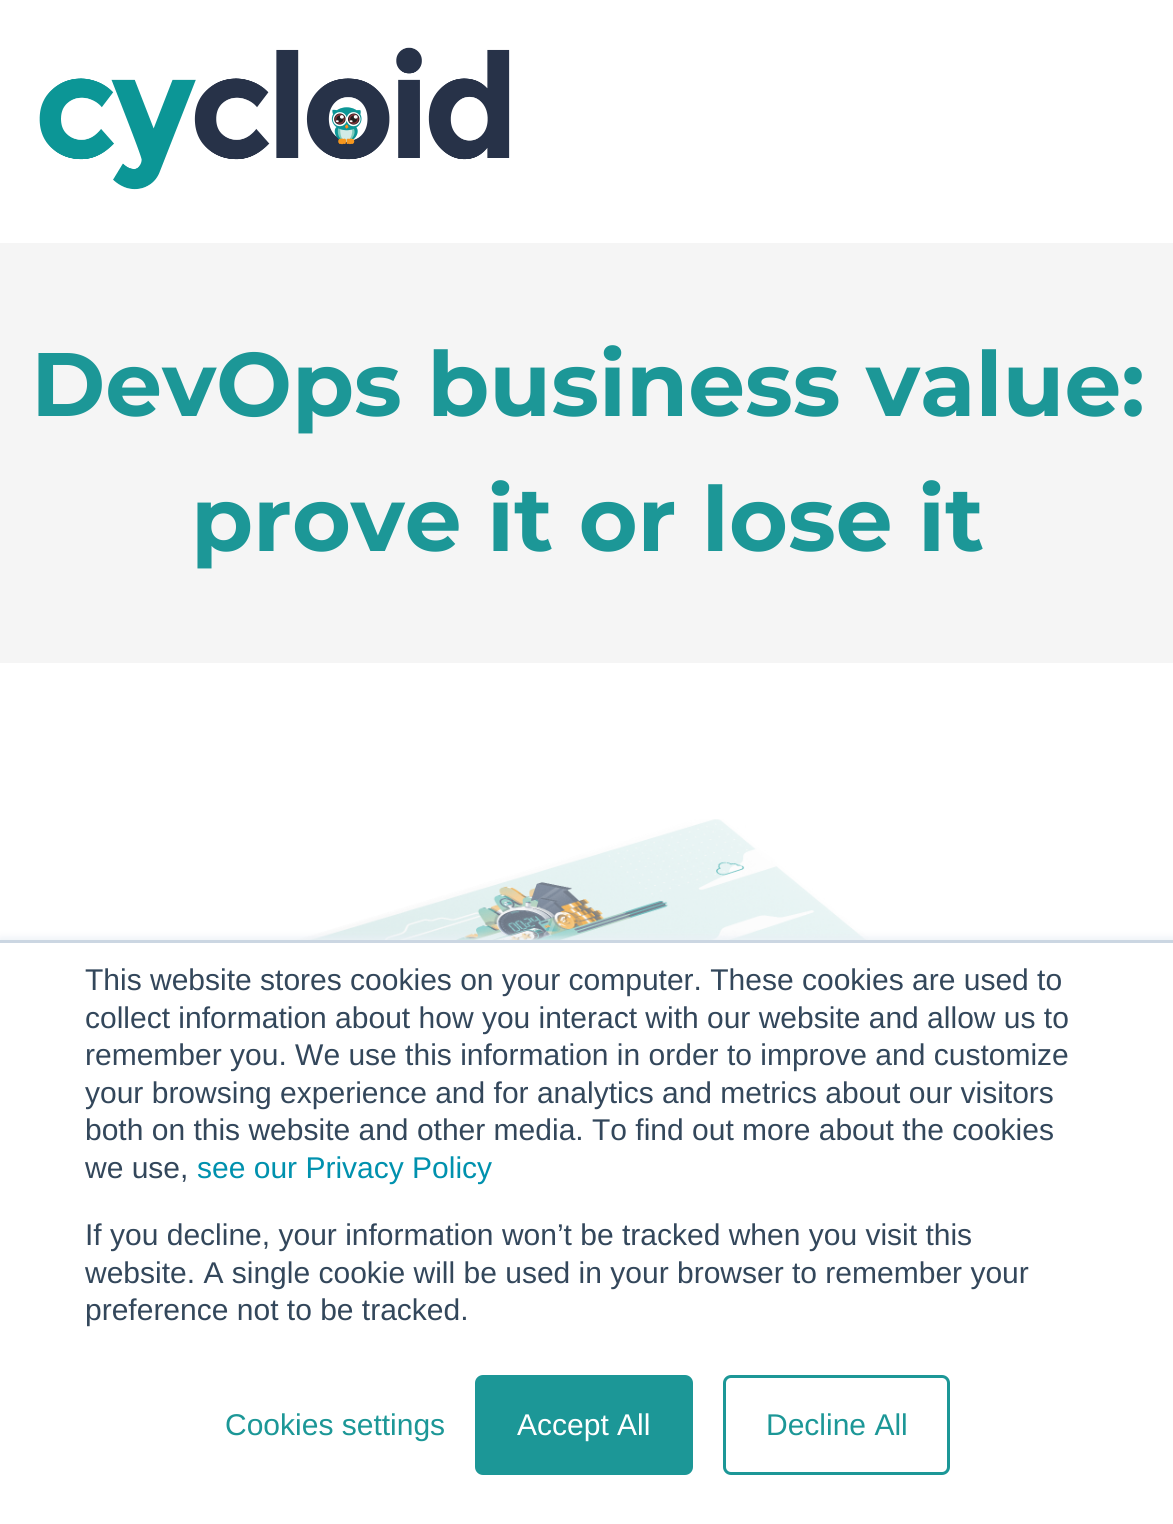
#include <cairo.h>
#include <math.h>
#include <stddef.h>

typedef struct { double x, y; const char *s; } line_t;

static void ink(cairo_t *ctx, unsigned color) {
    cairo_set_source_rgb(ctx, (color >> 16) / 255.0, (color >> 8 & 255) / 255.0, (color & 255) / 255.0);
}

static void round_path(cairo_t *ctx, double x, double y, double w, double h, double r) {
    cairo_new_sub_path(ctx);
    cairo_arc(ctx, x + w - r, y + h - r, r, 0, M_PI / 2);
    cairo_arc(ctx, x + r, y + h - r, r, M_PI / 2, M_PI);
    cairo_arc(ctx, x + r, y + r, r, M_PI, 1.5 * M_PI);
    cairo_arc(ctx, x + w - r, y + r, r, 1.5 * M_PI, 2 * M_PI);
    cairo_close_path(ctx);
}

static void blur_box(cairo_t *ctx, double x, double y, double w, double h, double r, double blur, double alpha) {
    cairo_push_group_with_content(ctx, CAIRO_CONTENT_ALPHA);
    cairo_set_operator(ctx, CAIRO_OPERATOR_SOURCE);
    for (int i = 15; i >= -15 && fmin(w, h) + blur * i / 3 > 0; i -= 2) {
        double e = blur * i / 6;
        cairo_set_source_rgba(ctx, 0, 0, 0, alpha * erfc((i - 1) / 8.5) / 2);
        round_path(ctx, x - e, y - e, w + 2 * e, h + 2 * e, fmax(0, fmin(r + e + blur * .6, fmin(w, h) / 2 + e)));
        cairo_fill(ctx);
    }
    cairo_pattern_t *soft = cairo_pop_group(ctx);
    cairo_mask(ctx, soft);
    cairo_pattern_destroy(soft);
}

static void paste(cairo_t *ctx, const char *path, double x, double y, double w, double h) {
    cairo_surface_t *image = cairo_image_surface_create_from_png(path);
    cairo_save(ctx);
    cairo_set_source_surface(ctx, image, x, y);
    cairo_rectangle(ctx, x, y, w, h);
    cairo_fill(ctx);
    cairo_restore(ctx);
    cairo_surface_destroy(image);
}

int main(void) {
    cairo_surface_t *surface = cairo_image_surface_create(CAIRO_FORMAT_RGB24, 1173, 1524);
    cairo_t *ctx = cairo_create(surface);
    cairo_font_options_t *options = cairo_font_options_create();
    cairo_font_options_set_hint_metrics(options, CAIRO_HINT_METRICS_OFF);
    cairo_font_options_set_hint_style(options, CAIRO_HINT_STYLE_NONE);
    cairo_set_font_options(ctx, options);
    cairo_set_miter_limit(ctx, 4);
    ink(ctx, 0xFFFFFF);
    cairo_paint(ctx);
    paste(ctx, "media/1.png", 39, 47, 471, 143);
    ink(ctx, 0xF5F5F5);
    cairo_rectangle(ctx, 0, 243, 1173, 420);
    cairo_fill(ctx);
    cairo_select_font_face(ctx, "Montserrat", CAIRO_FONT_SLANT_NORMAL, CAIRO_FONT_WEIGHT_BOLD);
    cairo_set_font_size(ctx, 90);
    ink(ctx, 0x1C9797);
    cairo_move_to(ctx, 31, 416);
    cairo_show_text(ctx, "DevOps business value:");
    cairo_move_to(ctx, 191, 551);
    cairo_show_text(ctx, "prove it or lose it");
    paste(ctx, "media/2.png", 295, 819, 580, 121);
    ink(ctx, 0xEAF0F6);
    blur_box(ctx, 0, 938, 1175, 585, 0, 4, 1);
    ink(ctx, 0xFFFFFF);
    cairo_rectangle(ctx, 0, 943, 1173, 581);
    cairo_fill(ctx);
    ink(ctx, 0xCBD6E2);
    cairo_rectangle(ctx, 0, 940, 1173, 3);
    cairo_fill(ctx);
    cairo_select_font_face(ctx, "Liberation Sans", CAIRO_FONT_SLANT_NORMAL, CAIRO_FONT_WEIGHT_NORMAL);
    cairo_set_font_size(ctx, 30);
    ink(ctx, 0x33475B);
    {
        static const line_t items[] = {
            {85, 990, "This website stores cookies on your computer. These cookies are used to"},
            {85, 1028, "collect information about how you interact with our website and allow us to"},
            {85, 1065, "remember you. We use this information in order to improve and customize"},
            {85, 1103, "your browsing experience and for analytics and metrics about our visitors"},
            {85, 1140, "both on this website and other media. To find out more about the cookies"},
            {85, 1178, "we use,"},
        };
        for (size_t i = 0; i < sizeof items / sizeof *items; i++) {
            cairo_move_to(ctx, items[i].x, items[i].y);
            cairo_show_text(ctx, items[i].s);
        }
    }
    ink(ctx, 0x0091AE);
    cairo_move_to(ctx, 197, 1178);
    cairo_show_text(ctx, "see our Privacy Policy");
    ink(ctx, 0x33475B);
    {
        static const line_t items[] = {
            {85, 1245, "If you decline, your information won’t be tracked when you visit this"},
            {85, 1283, "website. A single cookie will be used in your browser to remember your"},
            {85, 1320, "preference not to be tracked."},
        };
        for (size_t i = 0; i < sizeof items / sizeof *items; i++) {
            cairo_move_to(ctx, items[i].x, items[i].y);
            cairo_show_text(ctx, items[i].s);
        }
    }
    ink(ctx, 0x1C9797);
    cairo_move_to(ctx, 225, 1435);
    cairo_show_text(ctx, "Cookies settings");
    round_path(ctx, 476.5, 1376.5, 215, 97, 6.5);
    cairo_fill_preserve(ctx);
    cairo_set_line_width(ctx, 3);
    cairo_stroke(ctx);
    ink(ctx, 0xFFFFFF);
    cairo_move_to(ctx, 517, 1435);
    cairo_show_text(ctx, "Accept All");
    round_path(ctx, 724.5, 1376.5, 224, 97, 6.5);
    ink(ctx, 0x1C9797);
    cairo_stroke(ctx);
    cairo_move_to(ctx, 766, 1435);
    cairo_show_text(ctx, "Decline All");
    cairo_surface_write_to_png(surface, "image.png");
    cairo_font_options_destroy(options);
    cairo_destroy(ctx);
    cairo_surface_destroy(surface);
    return 0;
}
